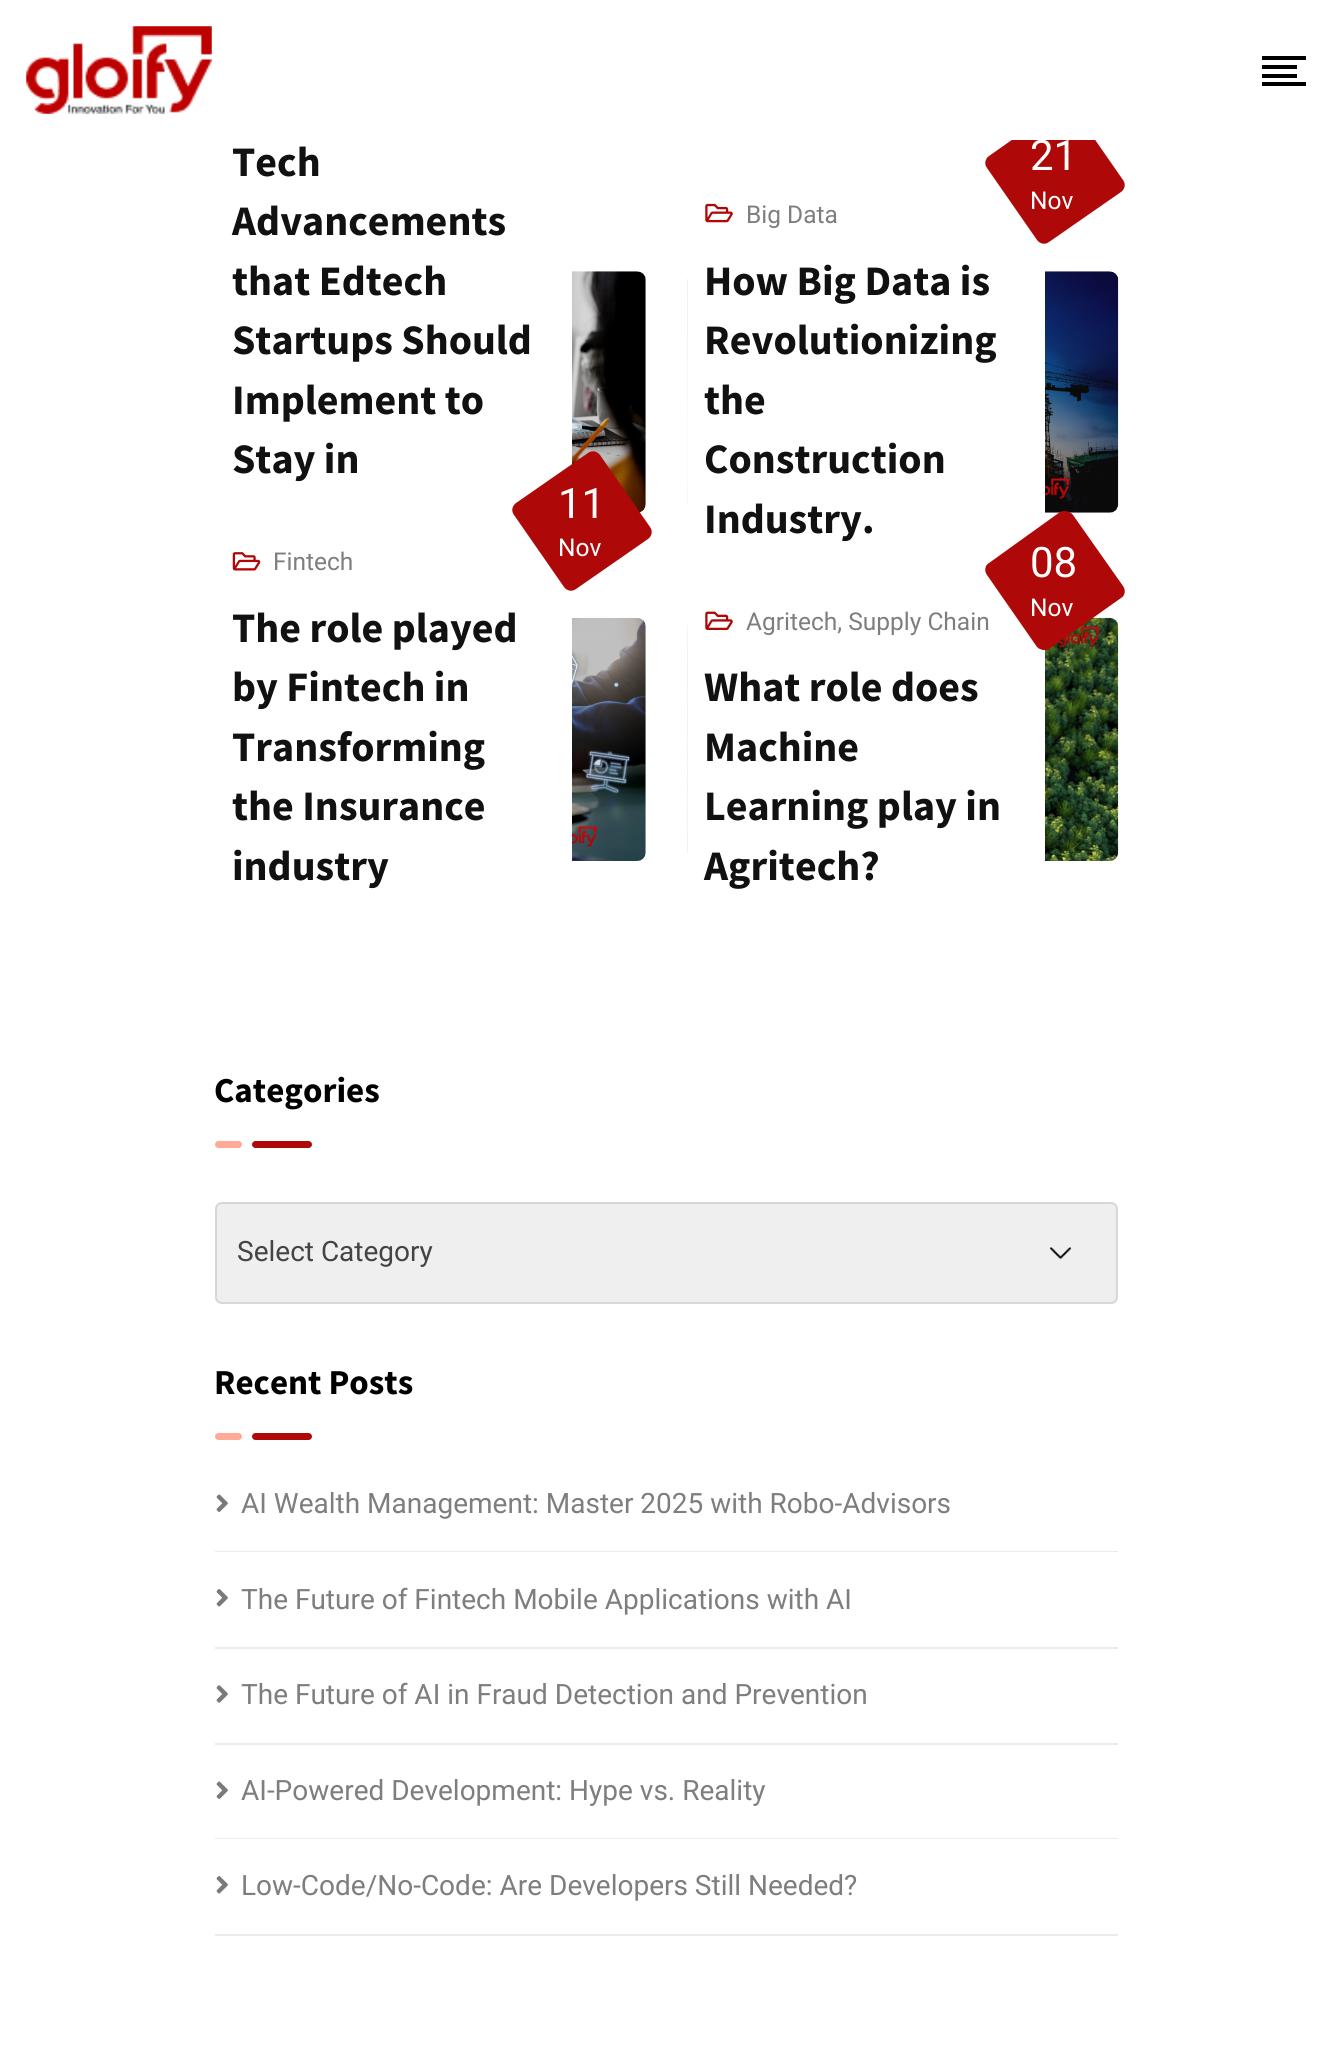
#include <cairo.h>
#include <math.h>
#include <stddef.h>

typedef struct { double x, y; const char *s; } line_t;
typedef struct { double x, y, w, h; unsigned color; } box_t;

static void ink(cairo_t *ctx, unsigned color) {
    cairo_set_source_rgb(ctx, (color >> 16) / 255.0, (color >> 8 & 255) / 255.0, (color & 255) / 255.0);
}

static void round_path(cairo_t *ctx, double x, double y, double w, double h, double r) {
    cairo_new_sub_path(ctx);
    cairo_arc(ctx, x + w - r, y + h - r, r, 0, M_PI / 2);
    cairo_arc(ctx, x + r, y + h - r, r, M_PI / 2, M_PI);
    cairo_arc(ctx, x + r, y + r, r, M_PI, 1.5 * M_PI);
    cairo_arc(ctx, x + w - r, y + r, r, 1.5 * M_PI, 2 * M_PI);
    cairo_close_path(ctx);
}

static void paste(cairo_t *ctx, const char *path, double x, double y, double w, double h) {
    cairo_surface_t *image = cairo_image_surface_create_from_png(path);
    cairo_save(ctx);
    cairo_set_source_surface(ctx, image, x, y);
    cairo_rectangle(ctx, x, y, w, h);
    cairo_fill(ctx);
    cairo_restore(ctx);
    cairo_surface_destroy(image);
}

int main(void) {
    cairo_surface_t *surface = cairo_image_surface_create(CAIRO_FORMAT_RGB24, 1331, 2068);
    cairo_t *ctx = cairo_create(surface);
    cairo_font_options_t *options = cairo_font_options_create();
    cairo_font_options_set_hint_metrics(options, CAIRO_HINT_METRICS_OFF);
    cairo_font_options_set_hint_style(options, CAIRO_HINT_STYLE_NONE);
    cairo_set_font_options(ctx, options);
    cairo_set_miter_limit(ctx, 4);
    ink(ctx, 0xFFFFFF);
    cairo_paint(ctx);
    paste(ctx, "media/1.png", 26, 26, 186, 88);
    {
        static const box_t items[] = {
            {1262, 56, 44, 4, 0x000000},
            {1262, 65, 35, 4, 0x000000},
            {1262, 74, 35, 4, 0x000000},
            {1262, 82, 44, 4, 0x000000},
        };
        for (size_t i = 0; i < sizeof items / sizeof *items; i++) {
            ink(ctx, items[i].color);
            cairo_rectangle(ctx, items[i].x, items[i].y, items[i].w, items[i].h);
            cairo_fill(ctx);
        }
    }
    cairo_select_font_face(ctx, "Source Sans Pro", CAIRO_FONT_SLANT_NORMAL, CAIRO_FONT_WEIGHT_BOLD);
    cairo_set_font_size(ctx, 42);
    ink(ctx, 0x111111);
    {
        static const line_t items[] = {
            {232, 176, "Tech"},
            {232, 235, "Advancements"},
            {232, 295, "that Edtech"},
            {232, 354, "Startups Should"},
            {232, 414, "Implement to"},
            {232, 473, "Stay in"},
        };
        for (size_t i = 0; i < sizeof items / sizeof *items; i++) {
            cairo_move_to(ctx, items[i].x, items[i].y);
            cairo_show_text(ctx, items[i].s);
        }
    }
    paste(ctx, "media/2.png", 572, 271, 74, 242);
    paste(ctx, "media/4.png", 687, 271, 432, 242);
    ink(ctx, 0xFFFFFF);
    cairo_rectangle(ctx, 688, 271, 357, 242);
    cairo_fill(ctx);
    cairo_save(ctx);
    cairo_rectangle(ctx, 0, 140, 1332, 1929);
    cairo_clip(ctx);
    ink(ctx, 0xAE0908);
    cairo_new_path(ctx);
    cairo_move_to(ctx, 1073, 108);
    cairo_line_to(ctx, 1123, 180);
    cairo_curve_to(ctx, 1126, 184, 1125, 189, 1121, 192);
    cairo_line_to(ctx, 1049, 242);
    cairo_curve_to(ctx, 1045, 245, 1040, 244, 1037, 240);
    cairo_line_to(ctx, 987, 168);
    cairo_curve_to(ctx, 984, 164, 985, 159, 989, 156);
    cairo_line_to(ctx, 1060, 106);
    cairo_curve_to(ctx, 1064, 103, 1070, 104, 1073, 108);
    cairo_close_path(ctx);
    cairo_fill(ctx);
    cairo_select_font_face(ctx, "Roboto", CAIRO_FONT_SLANT_NORMAL, CAIRO_FONT_WEIGHT_NORMAL);
    ink(ctx, 0xFFFFFF);
    cairo_move_to(ctx, 1030, 170);
    cairo_show_text(ctx, "21");
    cairo_restore(ctx);
    cairo_select_font_face(ctx, "Roboto", CAIRO_FONT_SLANT_NORMAL, CAIRO_FONT_WEIGHT_NORMAL);
    cairo_set_font_size(ctx, 24.5);
    cairo_move_to(ctx, 1030, 209);
    cairo_show_text(ctx, "Nov");
    paste(ctx, "media/3.png", 705, 203, 28, 20);
    ink(ctx, 0x7E7E7E);
    cairo_move_to(ctx, 746, 223);
    cairo_show_text(ctx, "Big Data");
    cairo_select_font_face(ctx, "Source Sans Pro", CAIRO_FONT_SLANT_NORMAL, CAIRO_FONT_WEIGHT_BOLD);
    cairo_set_font_size(ctx, 42);
    ink(ctx, 0x111111);
    {
        static const line_t items[] = {
            {704, 295, "How Big Data is"},
            {704, 354, "Revolutionizing"},
            {704, 414, "the"},
            {704, 473, "Construction"},
            {704, 533, "Industry."},
        };
        for (size_t i = 0; i < sizeof items / sizeof *items; i++) {
            cairo_move_to(ctx, items[i].x, items[i].y);
            cairo_show_text(ctx, items[i].s);
        }
    }
    ink(ctx, 0xAE0908);
    cairo_new_path(ctx);
    cairo_move_to(ctx, 600, 455);
    cairo_line_to(ctx, 650, 527);
    cairo_curve_to(ctx, 653, 531, 652, 536, 648, 539);
    cairo_line_to(ctx, 576, 589);
    cairo_curve_to(ctx, 572, 592, 567, 591, 564, 587);
    cairo_line_to(ctx, 514, 515);
    cairo_curve_to(ctx, 511, 511, 512, 506, 516, 503);
    cairo_line_to(ctx, 588, 453);
    cairo_curve_to(ctx, 592, 450, 597, 451, 600, 455);
    cairo_close_path(ctx);
    cairo_fill(ctx);
    cairo_select_font_face(ctx, "Roboto", CAIRO_FONT_SLANT_NORMAL, CAIRO_FONT_WEIGHT_NORMAL);
    ink(ctx, 0xFFFFFF);
    cairo_move_to(ctx, 558, 518);
    cairo_show_text(ctx, "11");
    cairo_set_font_size(ctx, 24.5);
    cairo_move_to(ctx, 558, 556);
    cairo_show_text(ctx, "Nov");
    paste(ctx, "media/5.png", 232, 552, 29, 19);
    ink(ctx, 0x7E7E7E);
    cairo_move_to(ctx, 273, 570);
    cairo_show_text(ctx, "Fintech");
    cairo_select_font_face(ctx, "Source Sans Pro", CAIRO_FONT_SLANT_NORMAL, CAIRO_FONT_WEIGHT_BOLD);
    cairo_set_font_size(ctx, 42);
    ink(ctx, 0x111111);
    {
        static const line_t items[] = {
            {232, 642, "The role played"},
            {232, 701, "by Fintech in"},
            {232, 761, "Transforming"},
            {232, 820, "the Insurance"},
            {232, 880, "industry"},
        };
        for (size_t i = 0; i < sizeof items / sizeof *items; i++) {
            cairo_move_to(ctx, items[i].x, items[i].y);
            cairo_show_text(ctx, items[i].s);
        }
    }
    paste(ctx, "media/6.png", 572, 617, 74, 244);
    paste(ctx, "media/8.png", 687, 617, 432, 244);
    ink(ctx, 0xFFFFFF);
    cairo_rectangle(ctx, 688, 617, 357, 244);
    cairo_fill(ctx);
    cairo_select_font_face(ctx, "Roboto", CAIRO_FONT_SLANT_NORMAL, CAIRO_FONT_WEIGHT_NORMAL);
    cairo_set_font_size(ctx, 24.5);
    ink(ctx, 0x7E7E7E);
    cairo_move_to(ctx, 746, 630);
    cairo_show_text(ctx, "Agritech, Supply Chain");
    ink(ctx, 0xAE0908);
    cairo_new_path(ctx);
    cairo_move_to(ctx, 1073, 515);
    cairo_line_to(ctx, 1123, 586);
    cairo_curve_to(ctx, 1126, 590, 1125, 596, 1121, 598);
    cairo_line_to(ctx, 1049, 649);
    cairo_curve_to(ctx, 1045, 651, 1040, 650, 1037, 647);
    cairo_line_to(ctx, 987, 575);
    cairo_curve_to(ctx, 984, 571, 985, 565, 989, 563);
    cairo_line_to(ctx, 1060, 512);
    cairo_curve_to(ctx, 1064, 510, 1070, 511, 1073, 515);
    cairo_close_path(ctx);
    cairo_fill(ctx);
    cairo_set_font_size(ctx, 42);
    ink(ctx, 0xFFFFFF);
    cairo_move_to(ctx, 1030, 577);
    cairo_show_text(ctx, "08");
    cairo_set_font_size(ctx, 24.5);
    cairo_move_to(ctx, 1030, 616);
    cairo_show_text(ctx, "Nov");
    paste(ctx, "media/7.png", 705, 611, 28, 19);
    cairo_select_font_face(ctx, "Source Sans Pro", CAIRO_FONT_SLANT_NORMAL, CAIRO_FONT_WEIGHT_BOLD);
    cairo_set_font_size(ctx, 42);
    ink(ctx, 0x111111);
    {
        static const line_t items[] = {
            {704, 701, "What role does"},
            {704, 761, "Machine"},
            {704, 820, "Learning play in"},
            {704, 880, "Agritech?"},
        };
        for (size_t i = 0; i < sizeof items / sizeof *items; i++) {
            cairo_move_to(ctx, items[i].x, items[i].y);
            cairo_show_text(ctx, items[i].s);
        }
    }
    cairo_set_font_size(ctx, 35);
    ink(ctx, 0x000000);
    cairo_move_to(ctx, 214, 1102);
    cairo_show_text(ctx, "Categories");
    ink(ctx, 0xFFA996);
    round_path(ctx, 215, 1141, 27, 7, 3.5);
    cairo_fill(ctx);
    ink(ctx, 0xAE0908);
    round_path(ctx, 252, 1141, 60, 7, 3.5);
    cairo_fill(ctx);
    ink(ctx, 0xEFEFEF);
    round_path(ctx, 215, 1202, 903, 102, 7);
    cairo_fill(ctx);
    paste(ctx, "media/9.png", 1050, 1247, 21, 13);
    round_path(ctx, 216, 1203, 901, 100, 6);
    ink(ctx, 0xD7D7D7);
    cairo_stroke(ctx);
    cairo_select_font_face(ctx, "Roboto", CAIRO_FONT_SLANT_NORMAL, CAIRO_FONT_WEIGHT_NORMAL);
    cairo_set_font_size(ctx, 28);
    ink(ctx, 0x444444);
    cairo_move_to(ctx, 237, 1261);
    cairo_show_text(ctx, "Select Category");
    cairo_select_font_face(ctx, "Source Sans Pro", CAIRO_FONT_SLANT_NORMAL, CAIRO_FONT_WEIGHT_BOLD);
    cairo_set_font_size(ctx, 35);
    ink(ctx, 0x000000);
    cairo_move_to(ctx, 214, 1394);
    cairo_show_text(ctx, "Recent Posts");
    ink(ctx, 0xFFA996);
    round_path(ctx, 215, 1433, 27, 7, 3.5);
    cairo_fill(ctx);
    ink(ctx, 0xAE0908);
    round_path(ctx, 252, 1433, 60, 7, 3.5);
    cairo_fill(ctx);
    ink(ctx, 0xEBEBEB);
    cairo_rectangle(ctx, 215, 1551, 903, 1);
    cairo_fill(ctx);
    paste(ctx, "media/10.png", 216, 1494, 12, 18);
    cairo_select_font_face(ctx, "Roboto", CAIRO_FONT_SLANT_NORMAL, CAIRO_FONT_WEIGHT_NORMAL);
    cairo_set_font_size(ctx, 28);
    ink(ctx, 0x7E7E7E);
    cairo_move_to(ctx, 241, 1513);
    cairo_show_text(ctx, "AI Wealth Management: Master 2025 with Robo-Advisors");
    ink(ctx, 0xEBEBEB);
    cairo_rectangle(ctx, 215, 1647, 903, 2);
    cairo_fill(ctx);
    paste(ctx, "media/11.png", 216, 1589, 12, 18);
    ink(ctx, 0x7E7E7E);
    cairo_move_to(ctx, 241, 1609);
    cairo_show_text(ctx, "The Future of Fintech Mobile Applications with AI");
    ink(ctx, 0xEBEBEB);
    cairo_rectangle(ctx, 215, 1743, 903, 2);
    cairo_fill(ctx);
    paste(ctx, "media/12.png", 216, 1685, 12, 18);
    ink(ctx, 0x7E7E7E);
    cairo_move_to(ctx, 241, 1704);
    cairo_show_text(ctx, "The Future of AI in Fraud Detection and Prevention");
    ink(ctx, 0xEBEBEB);
    cairo_rectangle(ctx, 215, 1838, 903, 1);
    cairo_fill(ctx);
    paste(ctx, "media/10.png", 216, 1781, 12, 18);
    ink(ctx, 0x7E7E7E);
    cairo_move_to(ctx, 241, 1800);
    cairo_show_text(ctx, "AI-Powered Development: Hype vs. Reality");
    ink(ctx, 0xEBEBEB);
    cairo_rectangle(ctx, 215, 1934, 903, 2);
    cairo_fill(ctx);
    paste(ctx, "media/11.png", 216, 1876, 12, 18);
    ink(ctx, 0x7E7E7E);
    cairo_move_to(ctx, 241, 1895);
    cairo_show_text(ctx, "Low-Code/No-Code: Are Developers Still Needed?");
    cairo_surface_write_to_png(surface, "image.png");
    cairo_font_options_destroy(options);
    cairo_destroy(ctx);
    cairo_surface_destroy(surface);
    return 0;
}
